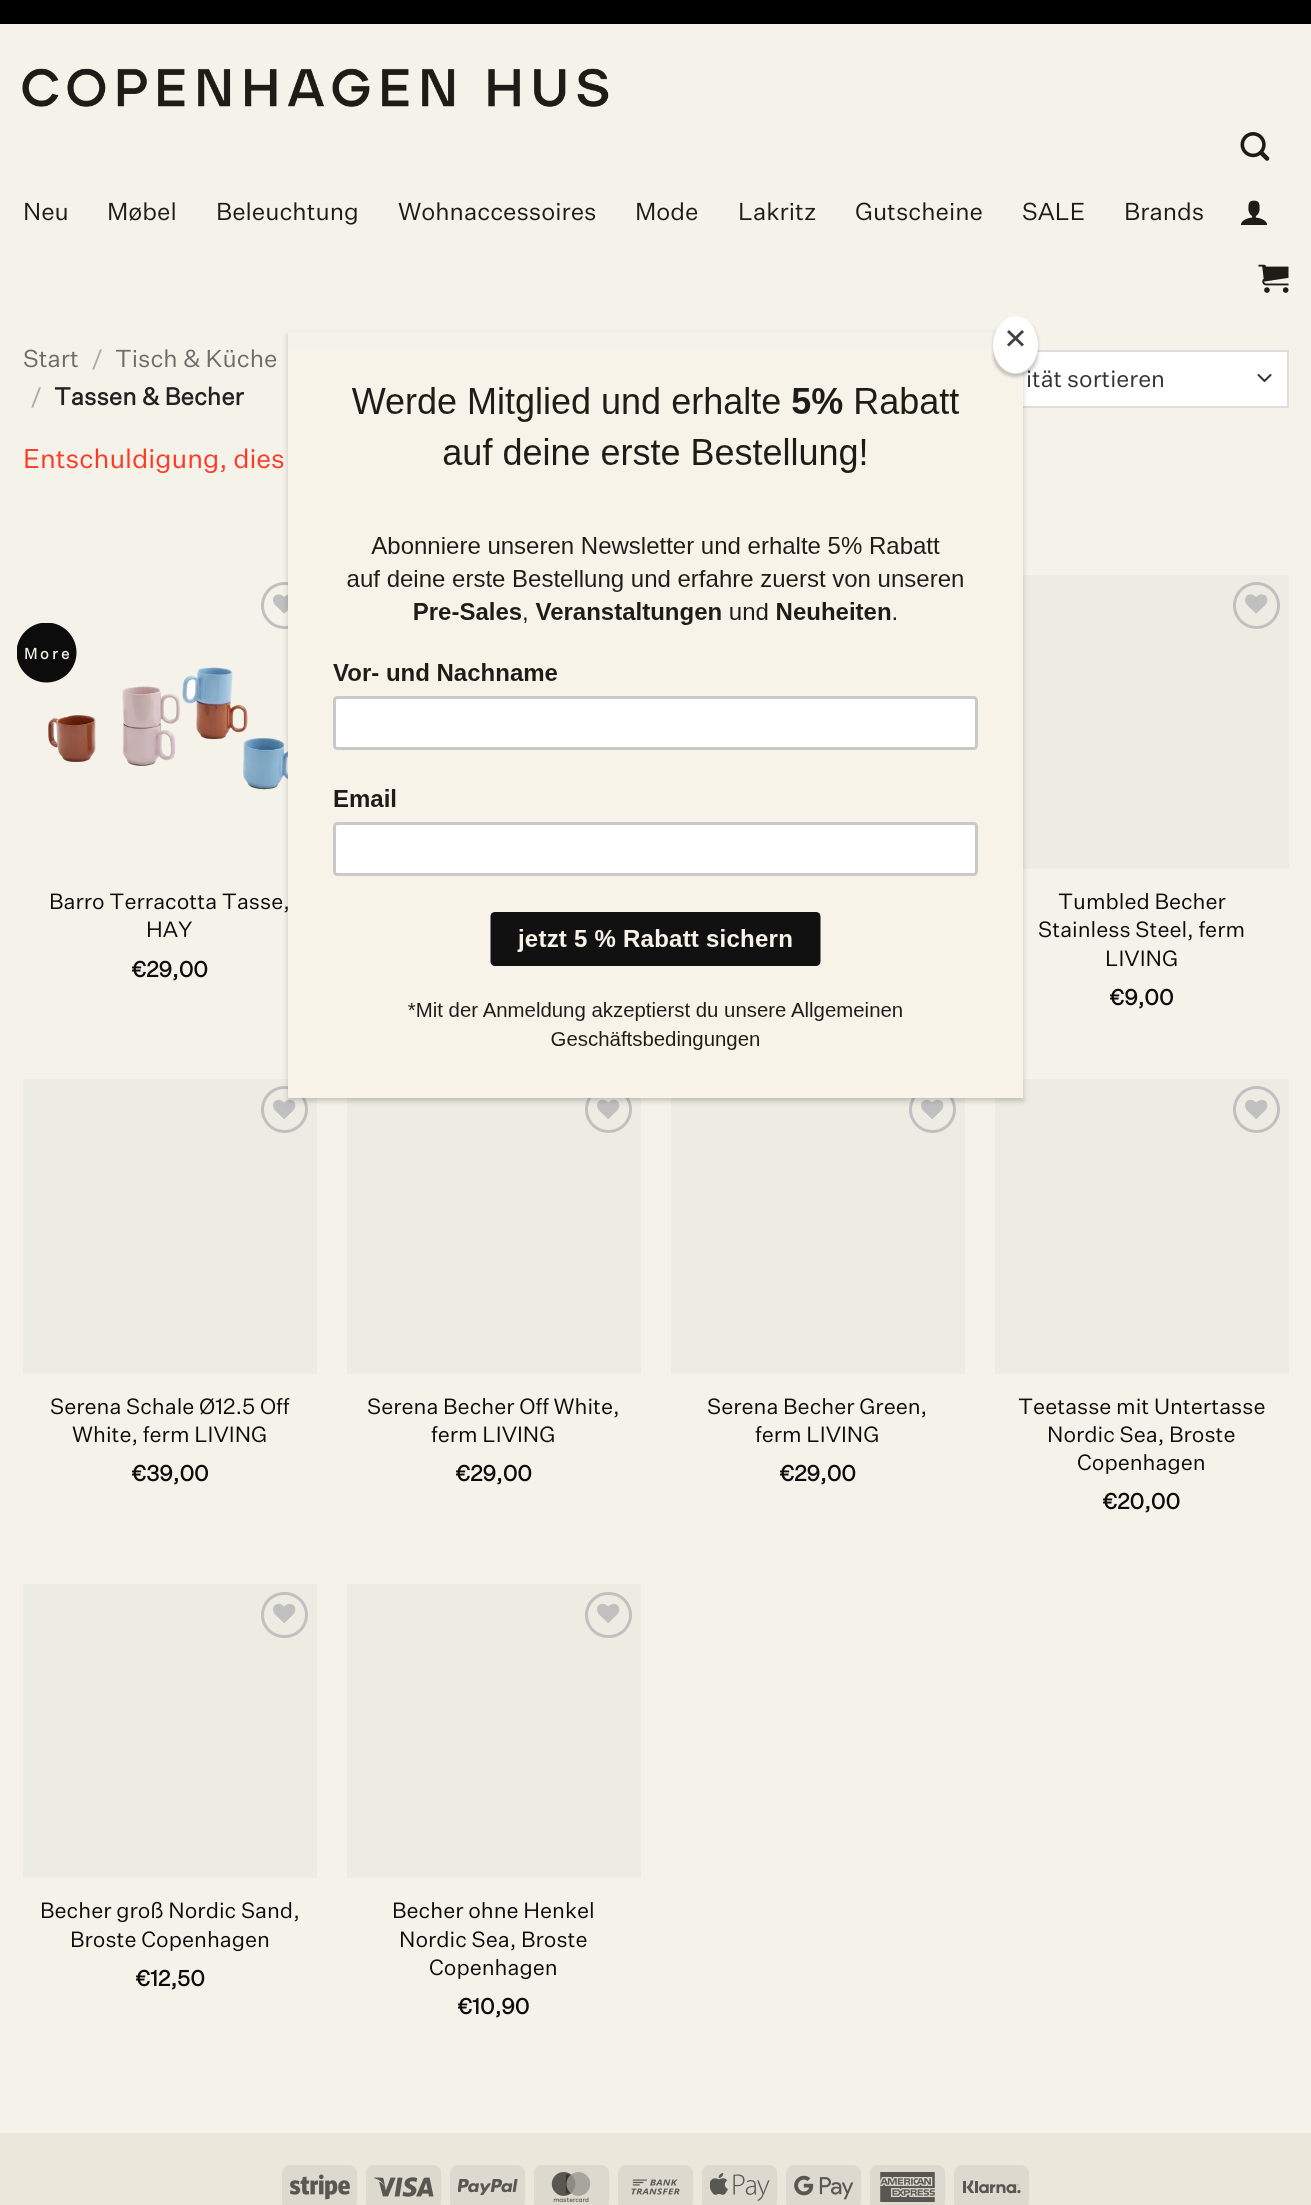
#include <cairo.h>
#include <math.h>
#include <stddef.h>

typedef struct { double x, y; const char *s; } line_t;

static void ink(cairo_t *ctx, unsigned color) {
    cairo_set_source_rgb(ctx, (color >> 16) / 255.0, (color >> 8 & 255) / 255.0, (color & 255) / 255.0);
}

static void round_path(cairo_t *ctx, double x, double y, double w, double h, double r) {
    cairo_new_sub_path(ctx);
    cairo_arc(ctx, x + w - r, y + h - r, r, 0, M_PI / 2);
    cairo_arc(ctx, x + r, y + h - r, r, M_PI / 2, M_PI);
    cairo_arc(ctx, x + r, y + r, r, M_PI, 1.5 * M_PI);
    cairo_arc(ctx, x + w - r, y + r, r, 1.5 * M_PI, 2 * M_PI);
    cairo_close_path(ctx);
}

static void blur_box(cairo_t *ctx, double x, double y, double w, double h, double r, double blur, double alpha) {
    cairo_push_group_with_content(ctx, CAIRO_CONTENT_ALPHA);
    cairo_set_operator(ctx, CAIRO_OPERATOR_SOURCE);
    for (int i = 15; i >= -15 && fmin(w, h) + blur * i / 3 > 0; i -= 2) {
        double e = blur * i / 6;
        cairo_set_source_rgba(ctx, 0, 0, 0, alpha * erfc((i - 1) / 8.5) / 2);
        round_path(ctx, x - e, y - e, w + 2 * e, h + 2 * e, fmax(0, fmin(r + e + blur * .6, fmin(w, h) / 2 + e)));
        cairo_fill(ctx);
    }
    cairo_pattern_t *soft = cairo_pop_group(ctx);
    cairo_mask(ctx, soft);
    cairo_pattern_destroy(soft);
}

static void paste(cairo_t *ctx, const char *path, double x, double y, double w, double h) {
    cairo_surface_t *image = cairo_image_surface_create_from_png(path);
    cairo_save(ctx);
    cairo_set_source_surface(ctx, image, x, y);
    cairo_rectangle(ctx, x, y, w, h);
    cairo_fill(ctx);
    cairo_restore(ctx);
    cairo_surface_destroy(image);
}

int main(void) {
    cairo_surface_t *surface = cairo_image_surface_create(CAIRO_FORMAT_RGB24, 1311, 2205);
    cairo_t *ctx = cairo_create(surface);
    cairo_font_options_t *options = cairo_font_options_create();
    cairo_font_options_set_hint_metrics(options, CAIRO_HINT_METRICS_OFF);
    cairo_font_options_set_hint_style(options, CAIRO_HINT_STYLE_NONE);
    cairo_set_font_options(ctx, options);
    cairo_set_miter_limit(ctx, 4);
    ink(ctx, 0x000000);
    cairo_paint(ctx);
    ink(ctx, 0xF5F3E9);
    cairo_rectangle(ctx, 0, 24, 1311, 2109);
    cairo_fill(ctx);
    paste(ctx, "media/1.png", 22, 68, 587, 39);
    cairo_select_font_face(ctx, "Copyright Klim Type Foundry", CAIRO_FONT_SLANT_NORMAL, CAIRO_FONT_WEIGHT_NORMAL);
    cairo_set_font_size(ctx, 24);
    ink(ctx, 0x1E1C17);
    {
        static const line_t items[] = {
            {23, 220, "Neu"},
            {107, 220, "Møbel"},
            {216, 220, "Beleuchtung"},
            {398, 220, "Wohnaccessoires"},
            {635, 220, "Mode"},
            {738, 220, "Lakritz"},
            {855, 220, "Gutscheine"},
            {1022, 220, "SALE"},
            {1124, 220, "Brands"},
        };
        for (size_t i = 0; i < sizeof items / sizeof *items; i++) {
            cairo_move_to(ctx, items[i].x, items[i].y);
            cairo_show_text(ctx, items[i].s);
        }
    }
    paste(ctx, "media/2.png", 1240, 132, 30, 29);
    paste(ctx, "media/3.png", 1240, 200, 28, 25);
    paste(ctx, "media/4.png", 1258, 264, 31, 29);
    ink(ctx, 0x6C6C6A);
    cairo_move_to(ctx, 23, 367);
    cairo_show_text(ctx, "Start");
    ink(ctx, 0xABAAA3);
    cairo_move_to(ctx, 91, 367);
    cairo_show_text(ctx, "/");
    ink(ctx, 0x6C6C6A);
    cairo_move_to(ctx, 115, 367);
    cairo_show_text(ctx, "Tisch & Küche");
    ink(ctx, 0xABAAA3);
    cairo_move_to(ctx, 30, 405);
    cairo_show_text(ctx, "/");
    cairo_select_font_face(ctx, "Copyright Klim Type Foundry", CAIRO_FONT_SLANT_NORMAL, CAIRO_FONT_WEIGHT_BOLD);
    ink(ctx, 0x222222);
    cairo_move_to(ctx, 54, 405);
    cairo_show_text(ctx, "Tassen & Becher");
    ink(ctx, 0xFFFFFF);
    cairo_rectangle(ctx, 1023, 352, 264, 54);
    cairo_fill(ctx);
    cairo_new_path(ctx);
    cairo_move_to(ctx, 1258.5, 375);
    cairo_line_to(ctx, 1264.5, 381);
    cairo_line_to(ctx, 1270.5, 375);
    ink(ctx, 0x333333);
    cairo_set_line_cap(ctx, CAIRO_LINE_CAP_ROUND);
    cairo_set_line_join(ctx, CAIRO_LINE_JOIN_ROUND);
    cairo_stroke(ctx);
    cairo_rectangle(ctx, 876, 351, 412, 56);
    ink(ctx, 0xDDDDDD);
    cairo_set_line_cap(ctx, CAIRO_LINE_CAP_BUTT);
    cairo_set_line_join(ctx, CAIRO_LINE_JOIN_MITER);
    cairo_stroke(ctx);
    cairo_select_font_face(ctx, "Copyright Klim Type Foundry", CAIRO_FONT_SLANT_NORMAL, CAIRO_FONT_WEIGHT_NORMAL);
    cairo_set_font_size(ctx, 23.25);
    ink(ctx, 0x333333);
    cairo_move_to(ctx, 1026, 387);
    cairo_show_text(ctx, "ität sortieren");
    cairo_set_font_size(ctx, 26.5);
    ink(ctx, 0xFF3726);
    cairo_move_to(ctx, 23, 468);
    cairo_show_text(ctx, "Entschuldigung, dies");
    paste(ctx, "media/6.png", 48, 667, 240, 123);
    cairo_save(ctx);
    cairo_rectangle(ctx, 17, 623, 60, 60);
    cairo_clip(ctx);
    ink(ctx, 0x0C0C0C);
    cairo_arc(ctx, 46.5, 652.5, 30, 0, 2 * M_PI);
    cairo_fill(ctx);
    cairo_restore(ctx);
    cairo_select_font_face(ctx, "Copyright Klim Type Foundry", CAIRO_FONT_SLANT_NORMAL, CAIRO_FONT_WEIGHT_BOLD);
    cairo_set_font_size(ctx, 15);
    ink(ctx, 0xF7F3E9);
    {
        static const line_t items[] = {
            {24, 659, "M"},
            {40, 659, "o"},
            {52, 659, "r"},
            {61, 659, "e"},
        };
        for (size_t i = 0; i < sizeof items / sizeof *items; i++) {
            cairo_move_to(ctx, items[i].x, items[i].y);
            cairo_show_text(ctx, items[i].s);
        }
    }
    cairo_new_path(ctx);
    cairo_arc(ctx, 284.5, 605.5, 22, 0, 2 * M_PI);
    ink(ctx, 0xC0C0C0);
    cairo_set_line_width(ctx, 3);
    cairo_stroke(ctx);
    paste(ctx, "media/5.png", 273, 594, 15, 20);
    cairo_select_font_face(ctx, "Copyright Klim Type Foundry", CAIRO_FONT_SLANT_NORMAL, CAIRO_FONT_WEIGHT_NORMAL);
    cairo_set_font_size(ctx, 21.6);
    ink(ctx, 0x0C0C0C);
    cairo_move_to(ctx, 49, 909);
    cairo_show_text(ctx, "Barro Terracotta Tasse,");
    cairo_move_to(ctx, 146, 937);
    cairo_show_text(ctx, "HAY");
    cairo_select_font_face(ctx, "Copyright Klim Type Foundry", CAIRO_FONT_SLANT_NORMAL, CAIRO_FONT_WEIGHT_BOLD);
    cairo_move_to(ctx, 131, 977);
    cairo_show_text(ctx, "€29,00");
    ink(ctx, 0xEDECE2);
    cairo_rectangle(ctx, 1023, 575, 266, 294);
    cairo_fill(ctx);
    cairo_arc(ctx, 1256.5, 605.5, 22, 0, 2 * M_PI);
    ink(ctx, 0xC0C0C0);
    cairo_stroke(ctx);
    paste(ctx, "media/7.png", 1245, 594, 23, 20);
    cairo_select_font_face(ctx, "Copyright Klim Type Foundry", CAIRO_FONT_SLANT_NORMAL, CAIRO_FONT_WEIGHT_NORMAL);
    ink(ctx, 0x0C0C0C);
    {
        static const line_t items[] = {
            {1058, 909, "Tumbled Becher"},
            {1038, 937, "Stainless Steel, ferm"},
            {1105, 966, "LIVING"},
        };
        for (size_t i = 0; i < sizeof items / sizeof *items; i++) {
            cairo_move_to(ctx, items[i].x, items[i].y);
            cairo_show_text(ctx, items[i].s);
        }
    }
    cairo_select_font_face(ctx, "Copyright Klim Type Foundry", CAIRO_FONT_SLANT_NORMAL, CAIRO_FONT_WEIGHT_BOLD);
    cairo_move_to(ctx, 1109, 1005);
    cairo_show_text(ctx, "€9,00");
    ink(ctx, 0xEDECE2);
    cairo_rectangle(ctx, 23, 1079, 294, 295);
    cairo_fill(ctx);
    cairo_arc(ctx, 284.5, 1109.5, 22, 0, 2 * M_PI);
    ink(ctx, 0xC0C0C0);
    cairo_stroke(ctx);
    paste(ctx, "media/8.png", 273, 1099, 23, 20);
    cairo_select_font_face(ctx, "Copyright Klim Type Foundry", CAIRO_FONT_SLANT_NORMAL, CAIRO_FONT_WEIGHT_NORMAL);
    ink(ctx, 0x0C0C0C);
    cairo_move_to(ctx, 50, 1414);
    cairo_show_text(ctx, "Serena Schale Ø12.5 Off");
    cairo_move_to(ctx, 72, 1442);
    cairo_show_text(ctx, "White, ferm LIVING");
    cairo_select_font_face(ctx, "Copyright Klim Type Foundry", CAIRO_FONT_SLANT_NORMAL, CAIRO_FONT_WEIGHT_BOLD);
    cairo_move_to(ctx, 131, 1481);
    cairo_show_text(ctx, "€39,00");
    ink(ctx, 0xEDECE2);
    cairo_rectangle(ctx, 347, 1098, 294, 276);
    cairo_fill(ctx);
    cairo_arc(ctx, 608.5, 1109.5, 22, 0, 2 * M_PI);
    ink(ctx, 0xC0C0C0);
    cairo_stroke(ctx);
    paste(ctx, "media/8.png", 597, 1099, 23, 20);
    cairo_select_font_face(ctx, "Copyright Klim Type Foundry", CAIRO_FONT_SLANT_NORMAL, CAIRO_FONT_WEIGHT_NORMAL);
    ink(ctx, 0x0C0C0C);
    cairo_move_to(ctx, 367, 1414);
    cairo_show_text(ctx, "Serena Becher Off White,");
    cairo_move_to(ctx, 431, 1442);
    cairo_show_text(ctx, "ferm LIVING");
    cairo_select_font_face(ctx, "Copyright Klim Type Foundry", CAIRO_FONT_SLANT_NORMAL, CAIRO_FONT_WEIGHT_BOLD);
    cairo_move_to(ctx, 455, 1481);
    cairo_show_text(ctx, "€29,00");
    ink(ctx, 0xEDECE2);
    cairo_rectangle(ctx, 671, 1098, 294, 276);
    cairo_fill(ctx);
    cairo_arc(ctx, 932.5, 1109.5, 22, 0, 2 * M_PI);
    ink(ctx, 0xC0C0C0);
    cairo_stroke(ctx);
    paste(ctx, "media/8.png", 921, 1099, 23, 20);
    cairo_select_font_face(ctx, "Copyright Klim Type Foundry", CAIRO_FONT_SLANT_NORMAL, CAIRO_FONT_WEIGHT_NORMAL);
    ink(ctx, 0x0C0C0C);
    cairo_move_to(ctx, 707, 1414);
    cairo_show_text(ctx, "Serena Becher Green,");
    cairo_move_to(ctx, 755, 1442);
    cairo_show_text(ctx, "ferm LIVING");
    cairo_select_font_face(ctx, "Copyright Klim Type Foundry", CAIRO_FONT_SLANT_NORMAL, CAIRO_FONT_WEIGHT_BOLD);
    cairo_move_to(ctx, 779, 1481);
    cairo_show_text(ctx, "€29,00");
    ink(ctx, 0xEDECE2);
    cairo_rectangle(ctx, 995, 1079, 294, 295);
    cairo_fill(ctx);
    cairo_arc(ctx, 1256.5, 1109.5, 22, 0, 2 * M_PI);
    ink(ctx, 0xC0C0C0);
    cairo_stroke(ctx);
    paste(ctx, "media/8.png", 1245, 1099, 23, 20);
    cairo_select_font_face(ctx, "Copyright Klim Type Foundry", CAIRO_FONT_SLANT_NORMAL, CAIRO_FONT_WEIGHT_NORMAL);
    ink(ctx, 0x0C0C0C);
    {
        static const line_t items[] = {
            {1018, 1414, "Teetasse mit Untertasse"},
            {1047, 1442, "Nordic Sea, Broste"},
            {1077, 1470, "Copenhagen"},
        };
        for (size_t i = 0; i < sizeof items / sizeof *items; i++) {
            cairo_move_to(ctx, items[i].x, items[i].y);
            cairo_show_text(ctx, items[i].s);
        }
    }
    cairo_select_font_face(ctx, "Copyright Klim Type Foundry", CAIRO_FONT_SLANT_NORMAL, CAIRO_FONT_WEIGHT_BOLD);
    cairo_move_to(ctx, 1102, 1509);
    cairo_show_text(ctx, "€20,00");
    ink(ctx, 0xEDECE2);
    cairo_rectangle(ctx, 23, 1584, 294, 294);
    cairo_fill(ctx);
    round_path(ctx, 262.5, 1593.5, 44, 43, 21.5);
    ink(ctx, 0xC0C0C0);
    cairo_stroke(ctx);
    paste(ctx, "media/8.png", 273, 1603, 23, 20);
    cairo_select_font_face(ctx, "Copyright Klim Type Foundry", CAIRO_FONT_SLANT_NORMAL, CAIRO_FONT_WEIGHT_NORMAL);
    ink(ctx, 0x0C0C0C);
    cairo_move_to(ctx, 40, 1918);
    cairo_show_text(ctx, "Becher groß Nordic Sand,");
    cairo_move_to(ctx, 70, 1947);
    cairo_show_text(ctx, "Broste Copenhagen");
    cairo_select_font_face(ctx, "Copyright Klim Type Foundry", CAIRO_FONT_SLANT_NORMAL, CAIRO_FONT_WEIGHT_BOLD);
    cairo_move_to(ctx, 135, 1986);
    cairo_show_text(ctx, "€12,50");
    ink(ctx, 0xEDECE2);
    cairo_rectangle(ctx, 347, 1584, 294, 294);
    cairo_fill(ctx);
    round_path(ctx, 586.5, 1593.5, 44, 43, 21.5);
    ink(ctx, 0xC0C0C0);
    cairo_stroke(ctx);
    paste(ctx, "media/8.png", 597, 1603, 23, 20);
    cairo_select_font_face(ctx, "Copyright Klim Type Foundry", CAIRO_FONT_SLANT_NORMAL, CAIRO_FONT_WEIGHT_NORMAL);
    ink(ctx, 0x0C0C0C);
    {
        static const line_t items[] = {
            {392, 1918, "Becher ohne Henkel"},
            {399, 1947, "Nordic Sea, Broste"},
            {429, 1975, "Copenhagen"},
        };
        for (size_t i = 0; i < sizeof items / sizeof *items; i++) {
            cairo_move_to(ctx, items[i].x, items[i].y);
            cairo_show_text(ctx, items[i].s);
        }
    }
    cairo_select_font_face(ctx, "Copyright Klim Type Foundry", CAIRO_FONT_SLANT_NORMAL, CAIRO_FONT_WEIGHT_BOLD);
    cairo_move_to(ctx, 457, 2014);
    cairo_show_text(ctx, "€10,90");
    ink(ctx, 0xEBE7DB);
    cairo_rectangle(ctx, 0, 2133, 1311, 72);
    cairo_fill(ctx);
    ink(ctx, 0xDDD9CE);
    round_path(ctx, 282, 2165, 75, 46, 8);
    cairo_fill(ctx);
    paste(ctx, "media/9.png", 290, 2174, 60, 26);
    round_path(ctx, 366, 2165, 75, 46, 8);
    cairo_fill(ctx);
    paste(ctx, "media/10.png", 374, 2177, 60, 20);
    round_path(ctx, 450, 2165, 75, 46, 8);
    cairo_fill(ctx);
    paste(ctx, "media/11.png", 458, 2179, 60, 16);
    round_path(ctx, 534, 2165, 75, 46, 8);
    cairo_fill(ctx);
    paste(ctx, "media/12.png", 551, 2172, 40, 30);
    round_path(ctx, 618, 2165, 75, 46, 8);
    cairo_fill(ctx);
    paste(ctx, "media/13.png", 631, 2179, 49, 16);
    round_path(ctx, 702, 2165, 75, 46, 8);
    cairo_fill(ctx);
    paste(ctx, "media/14.png", 710, 2173, 60, 28);
    round_path(ctx, 786, 2165, 75, 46, 8);
    cairo_fill(ctx);
    paste(ctx, "media/15.png", 794, 2175, 60, 25);
    round_path(ctx, 870, 2165, 75, 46, 8);
    cairo_fill(ctx);
    paste(ctx, "media/16.png", 880, 2172, 55, 30);
    round_path(ctx, 954, 2165, 75, 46, 8);
    cairo_fill(ctx);
    paste(ctx, "media/17.png", 963, 2180, 58, 14);
    cairo_save(ctx);
    cairo_set_fill_rule(ctx, CAIRO_FILL_RULE_EVEN_ODD);
    cairo_new_path(ctx);
    cairo_move_to(ctx, 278, 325);
    cairo_line_to(ctx, 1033, 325);
    cairo_line_to(ctx, 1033, 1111);
    cairo_line_to(ctx, 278, 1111);
    cairo_close_path(ctx);
    cairo_move_to(ctx, 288, 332);
    cairo_line_to(ctx, 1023, 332);
    cairo_line_to(ctx, 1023, 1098);
    cairo_line_to(ctx, 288, 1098);
    cairo_close_path(ctx);
    cairo_clip(ctx);
    ink(ctx, 0x000000);
    blur_box(ctx, 288, 335, 735, 766, 0, 3, 0.2);
    cairo_restore(ctx);
    paste(ctx, "media/18.png", 288, 349, 735, 749);
    ink(ctx, 0x000000);
    blur_box(ctx, 993, 320, 45, 57, 22.5, 1.5, 0.2);
    ink(ctx, 0xFFFFFF);
    cairo_new_path(ctx);
    cairo_move_to(ctx, 1015.5, 316.5);
    cairo_curve_to(ctx, 1028, 316.5, 1038, 329.5, 1038, 345);
    cairo_curve_to(ctx, 1038, 360.5, 1028, 373.5, 1015.5, 373.5);
    cairo_curve_to(ctx, 1003, 373.5, 993, 360.5, 993, 345);
    cairo_curve_to(ctx, 993, 329.5, 1003, 316.5, 1015.5, 316.5);
    cairo_close_path(ctx);
    cairo_fill(ctx);
    ink(ctx, 0x414141);
    cairo_new_path(ctx);
    cairo_move_to(ctx, 1022, 330);
    cairo_line_to(ctx, 1024, 332);
    cairo_line_to(ctx, 1009, 346.5);
    cairo_line_to(ctx, 1007, 344.5);
    cairo_close_path(ctx);
    cairo_fill(ctx);
    cairo_new_path(ctx);
    cairo_move_to(ctx, 1007, 332);
    cairo_line_to(ctx, 1009, 330);
    cairo_line_to(ctx, 1024, 344.5);
    cairo_line_to(ctx, 1022, 346.5);
    cairo_close_path(ctx);
    cairo_fill(ctx);
    cairo_surface_write_to_png(surface, "image.png");
    cairo_font_options_destroy(options);
    cairo_destroy(ctx);
    cairo_surface_destroy(surface);
    return 0;
}
